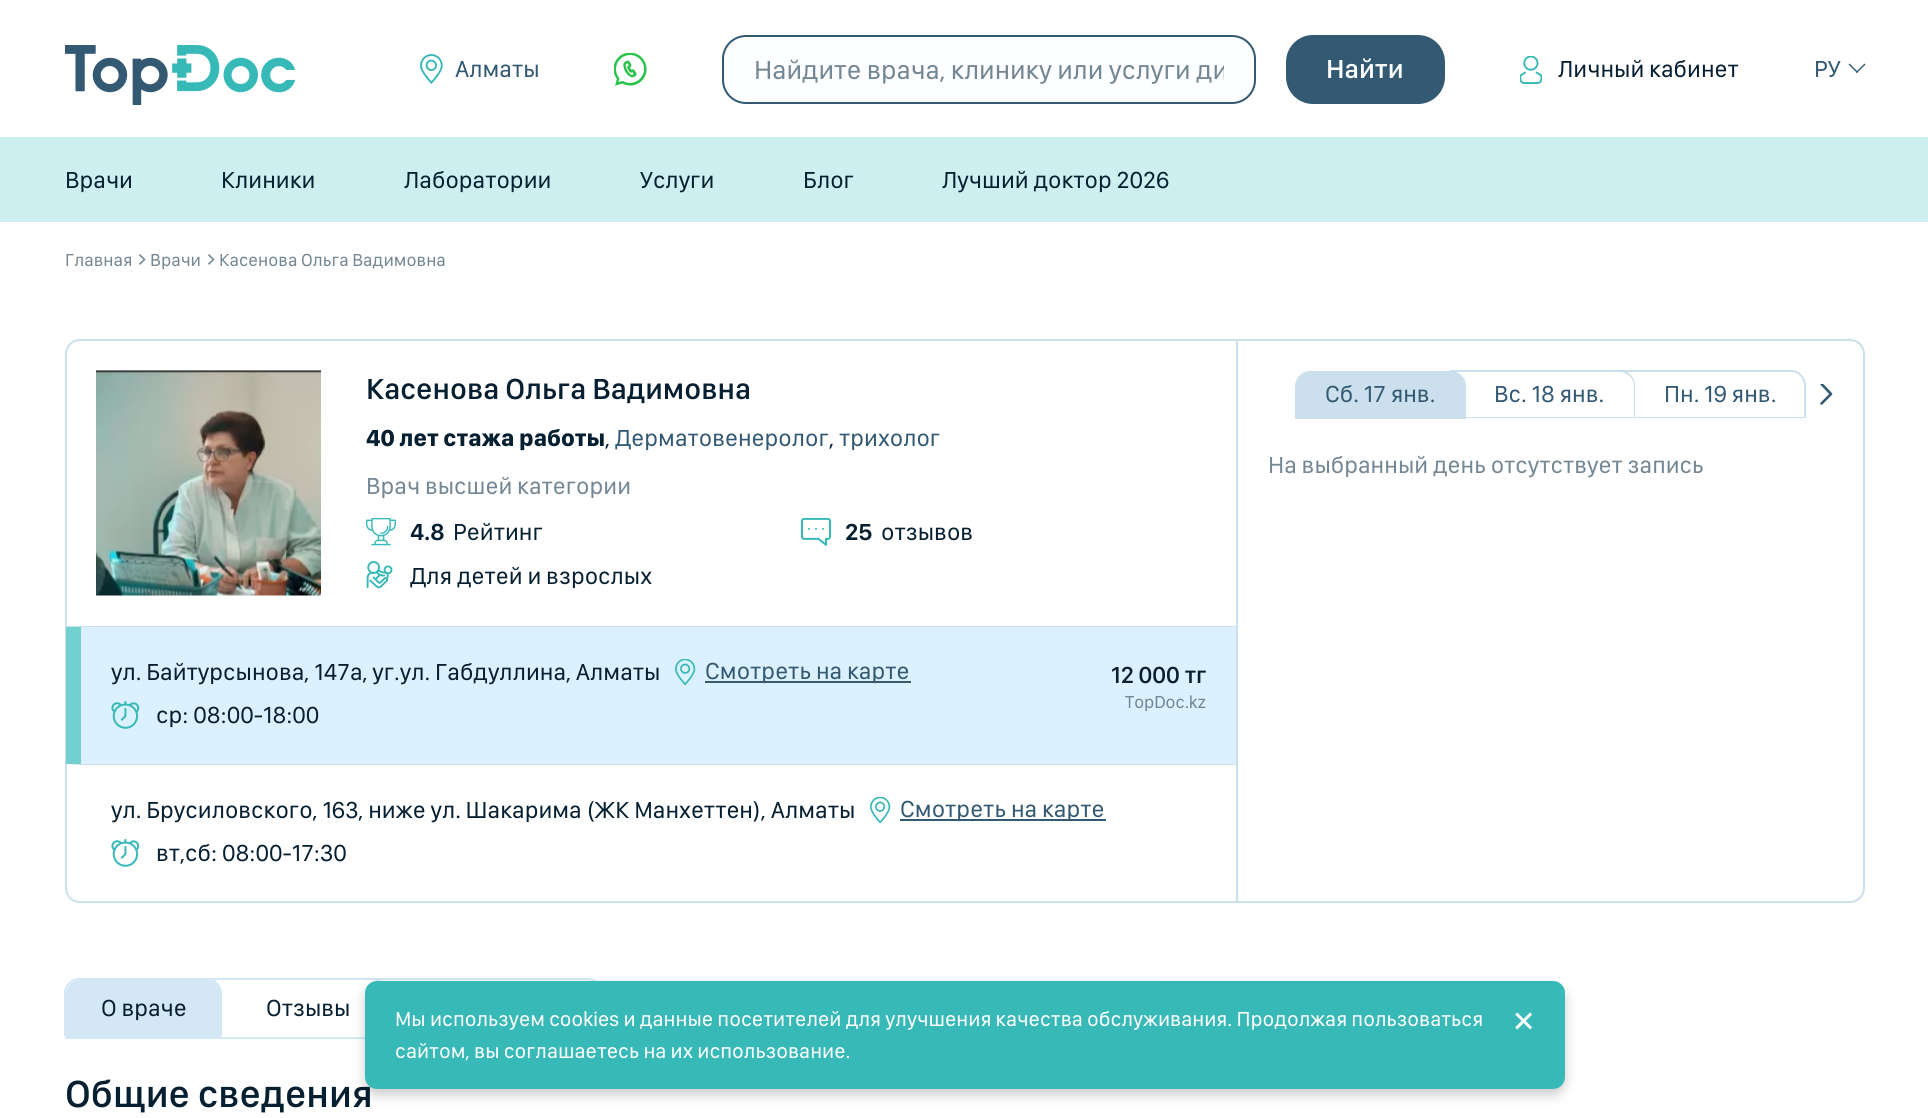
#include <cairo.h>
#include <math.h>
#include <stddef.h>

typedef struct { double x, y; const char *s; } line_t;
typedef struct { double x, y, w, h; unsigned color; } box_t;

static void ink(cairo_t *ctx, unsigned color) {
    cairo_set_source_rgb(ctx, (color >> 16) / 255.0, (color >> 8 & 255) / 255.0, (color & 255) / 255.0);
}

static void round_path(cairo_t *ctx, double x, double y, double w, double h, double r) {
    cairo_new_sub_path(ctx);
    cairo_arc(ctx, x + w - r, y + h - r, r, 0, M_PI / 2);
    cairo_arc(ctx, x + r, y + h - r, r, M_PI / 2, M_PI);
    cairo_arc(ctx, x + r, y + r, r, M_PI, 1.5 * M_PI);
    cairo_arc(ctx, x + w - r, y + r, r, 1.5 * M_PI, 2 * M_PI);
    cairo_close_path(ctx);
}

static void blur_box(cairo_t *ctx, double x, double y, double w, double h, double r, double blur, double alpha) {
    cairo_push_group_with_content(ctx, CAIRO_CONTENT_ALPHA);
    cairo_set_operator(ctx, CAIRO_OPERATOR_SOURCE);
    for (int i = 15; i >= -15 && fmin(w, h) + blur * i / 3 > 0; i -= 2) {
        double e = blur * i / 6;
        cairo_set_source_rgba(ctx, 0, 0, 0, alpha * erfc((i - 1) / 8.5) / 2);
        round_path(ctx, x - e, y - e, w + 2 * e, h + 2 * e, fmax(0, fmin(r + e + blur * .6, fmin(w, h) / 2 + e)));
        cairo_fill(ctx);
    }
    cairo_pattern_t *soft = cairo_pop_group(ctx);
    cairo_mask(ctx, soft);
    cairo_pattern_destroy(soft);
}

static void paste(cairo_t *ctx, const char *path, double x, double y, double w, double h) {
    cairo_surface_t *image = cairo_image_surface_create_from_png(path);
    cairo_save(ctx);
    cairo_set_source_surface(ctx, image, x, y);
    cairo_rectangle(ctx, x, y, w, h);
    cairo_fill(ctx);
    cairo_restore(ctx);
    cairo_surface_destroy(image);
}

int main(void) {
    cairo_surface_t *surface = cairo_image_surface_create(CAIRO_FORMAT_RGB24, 1928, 1118);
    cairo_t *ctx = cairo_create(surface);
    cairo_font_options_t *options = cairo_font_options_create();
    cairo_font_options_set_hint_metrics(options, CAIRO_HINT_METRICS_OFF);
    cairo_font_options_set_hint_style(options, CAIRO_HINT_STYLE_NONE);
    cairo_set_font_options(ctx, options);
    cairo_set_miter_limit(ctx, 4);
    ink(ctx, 0xFFFFFF);
    cairo_paint(ctx);
    paste(ctx, "media/1.png", 65, 45, 230, 60);
    paste(ctx, "media/2.png", 420, 54, 23, 30);
    cairo_select_font_face(ctx, "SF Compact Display", CAIRO_FONT_SLANT_NORMAL, CAIRO_FONT_WEIGHT_NORMAL);
    cairo_set_font_size(ctx, 24);
    ink(ctx, 0x335973);
    cairo_move_to(ctx, 455, 77);
    cairo_show_text(ctx, "Алматы");
    paste(ctx, "media/3.png", 614, 53, 33, 33);
    ink(ctx, 0xFCFEFF);
    round_path(ctx, 723, 36, 532, 67, 23);
    cairo_fill_preserve(ctx);
    ink(ctx, 0x335973);
    cairo_stroke(ctx);
    cairo_save(ctx);
    cairo_rectangle(ctx, 753, 54, 471, 32);
    cairo_clip(ctx);
    cairo_set_font_size(ctx, 27);
    ink(ctx, 0x748794);
    cairo_move_to(ctx, 754, 79);
    cairo_show_text(ctx, "Найдите врача, клинику или услуги ди");
    cairo_restore(ctx);
    round_path(ctx, 1287.5, 36.5, 156, 66, 25.5);
    cairo_fill_preserve(ctx);
    cairo_set_line_width(ctx, 3);
    cairo_stroke(ctx);
    cairo_select_font_face(ctx, "SF Compact Display Medium", CAIRO_FONT_SLANT_NORMAL, CAIRO_FONT_WEIGHT_NORMAL);
    cairo_set_font_size(ctx, 27);
    ink(ctx, 0xFFFFFF);
    cairo_move_to(ctx, 1326, 78);
    cairo_show_text(ctx, "Найти");
    paste(ctx, "media/4.png", 1520, 56, 22, 28);
    cairo_select_font_face(ctx, "SF Compact Display", CAIRO_FONT_SLANT_NORMAL, CAIRO_FONT_WEIGHT_NORMAL);
    cairo_set_font_size(ctx, 24);
    ink(ctx, 0x062032);
    cairo_move_to(ctx, 1558, 77);
    cairo_show_text(ctx, "Личный кабинет");
    ink(ctx, 0x335973);
    cairo_move_to(ctx, 1814, 77);
    cairo_show_text(ctx, "РУ");
    cairo_new_path(ctx);
    cairo_move_to(ctx, 1864.5, 63.5);
    cairo_line_to(ctx, 1865.5, 64.5);
    cairo_line_to(ctx, 1857, 73);
    cairo_line_to(ctx, 1856, 72);
    cairo_close_path(ctx);
    cairo_fill(ctx);
    cairo_new_path(ctx);
    cairo_move_to(ctx, 1849.5, 63.5);
    cairo_line_to(ctx, 1858, 72);
    cairo_line_to(ctx, 1857, 73);
    cairo_line_to(ctx, 1848.5, 64.5);
    cairo_close_path(ctx);
    cairo_fill(ctx);
    ink(ctx, 0xCDEFEF);
    cairo_rectangle(ctx, 0, 137, 1928, 85);
    cairo_fill(ctx);
    ink(ctx, 0x062032);
    {
        static const line_t items[] = {
            {65, 188, "Врачи"},
            {221, 188, "Клиники"},
            {404, 188, "Лаборатории"},
            {640, 188, "Услуги"},
            {803, 188, "Блог"},
            {942, 188, "Лучший доктор 2026"},
        };
        for (size_t i = 0; i < sizeof items / sizeof *items; i++) {
            cairo_move_to(ctx, items[i].x, items[i].y);
            cairo_show_text(ctx, items[i].s);
        }
    }
    cairo_set_font_size(ctx, 18);
    ink(ctx, 0x748794);
    cairo_move_to(ctx, 65, 266);
    cairo_show_text(ctx, "Главная");
    cairo_new_path(ctx);
    cairo_move_to(ctx, 139, 255.5);
    cairo_line_to(ctx, 140, 254);
    cairo_line_to(ctx, 145.5, 259.5);
    cairo_line_to(ctx, 144.5, 260.5);
    cairo_close_path(ctx);
    cairo_fill(ctx);
    cairo_new_path(ctx);
    cairo_move_to(ctx, 139, 263.5);
    cairo_line_to(ctx, 144.5, 258.5);
    cairo_line_to(ctx, 145.5, 259.5);
    cairo_line_to(ctx, 140, 265);
    cairo_close_path(ctx);
    cairo_fill(ctx);
    cairo_move_to(ctx, 150, 266);
    cairo_show_text(ctx, "Врачи");
    cairo_new_path(ctx);
    cairo_move_to(ctx, 208, 255.5);
    cairo_line_to(ctx, 209, 254);
    cairo_line_to(ctx, 214.5, 259.5);
    cairo_line_to(ctx, 213.5, 260.5);
    cairo_close_path(ctx);
    cairo_fill(ctx);
    cairo_new_path(ctx);
    cairo_move_to(ctx, 208, 263.5);
    cairo_line_to(ctx, 213.5, 258.5);
    cairo_line_to(ctx, 214.5, 259.5);
    cairo_line_to(ctx, 209, 265);
    cairo_close_path(ctx);
    cairo_fill(ctx);
    cairo_move_to(ctx, 219, 266);
    cairo_show_text(ctx, "Касенова Ольга Вадимовна");
    round_path(ctx, 66, 340, 1798, 562, 14);
    ink(ctx, 0xCBDFEC);
    cairo_set_line_width(ctx, 2);
    cairo_stroke(ctx);
    paste(ctx, "media/5.png", 96, 370, 225, 226);
    cairo_select_font_face(ctx, "SF Compact Display Medium", CAIRO_FONT_SLANT_NORMAL, CAIRO_FONT_WEIGHT_NORMAL);
    cairo_set_font_size(ctx, 30);
    ink(ctx, 0x062032);
    cairo_move_to(ctx, 366, 399);
    cairo_show_text(ctx, "Касенова Ольга Вадимовна");
    cairo_select_font_face(ctx, "SF Compact Display", CAIRO_FONT_SLANT_NORMAL, CAIRO_FONT_WEIGHT_BOLD);
    cairo_set_font_size(ctx, 24);
    cairo_move_to(ctx, 366, 446);
    cairo_show_text(ctx, "40 лет стажа работы");
    cairo_select_font_face(ctx, "SF Compact Display", CAIRO_FONT_SLANT_NORMAL, CAIRO_FONT_WEIGHT_NORMAL);
    cairo_move_to(ctx, 605, 446);
    cairo_show_text(ctx, ",");
    ink(ctx, 0x335973);
    cairo_move_to(ctx, 615, 446);
    cairo_show_text(ctx, "Дерматовенеролог");
    ink(ctx, 0x062032);
    cairo_move_to(ctx, 829, 446);
    cairo_show_text(ctx, ",");
    ink(ctx, 0x335973);
    cairo_move_to(ctx, 839, 446);
    cairo_show_text(ctx, "трихолог");
    ink(ctx, 0x748794);
    cairo_move_to(ctx, 366, 494);
    cairo_show_text(ctx, "Врач высшей категории");
    paste(ctx, "media/6.png", 366, 518, 30, 28);
    cairo_select_font_face(ctx, "SF Compact Display SemiBold", CAIRO_FONT_SLANT_NORMAL, CAIRO_FONT_WEIGHT_NORMAL);
    ink(ctx, 0x062032);
    cairo_move_to(ctx, 410, 540);
    cairo_show_text(ctx, "4.8");
    cairo_select_font_face(ctx, "SF Compact Display", CAIRO_FONT_SLANT_NORMAL, CAIRO_FONT_WEIGHT_NORMAL);
    cairo_move_to(ctx, 453, 540);
    cairo_show_text(ctx, "Рейтинг");
    paste(ctx, "media/7.png", 801, 518, 30, 28);
    cairo_select_font_face(ctx, "SF Compact Display SemiBold", CAIRO_FONT_SLANT_NORMAL, CAIRO_FONT_WEIGHT_NORMAL);
    cairo_move_to(ctx, 845, 540);
    cairo_show_text(ctx, "25");
    cairo_select_font_face(ctx, "SF Compact Display", CAIRO_FONT_SLANT_NORMAL, CAIRO_FONT_WEIGHT_NORMAL);
    cairo_move_to(ctx, 881, 540);
    cairo_show_text(ctx, "отзывов");
    paste(ctx, "media/8.png", 366, 561, 27, 28);
    cairo_move_to(ctx, 410, 584);
    cairo_show_text(ctx, "Для детей и взрослых");
    {
        static const box_t items[] = {
            {66, 626, 1170, 1, 0xCBDFEC},
            {81, 627, 1155, 137, 0xDCF1FF},
            {66, 627, 15, 137, 0x72D1D0},
        };
        for (size_t i = 0; i < sizeof items / sizeof *items; i++) {
            ink(ctx, items[i].color);
            cairo_rectangle(ctx, items[i].x, items[i].y, items[i].w, items[i].h);
            cairo_fill(ctx);
        }
    }
    ink(ctx, 0x062032);
    cairo_move_to(ctx, 111, 680);
    cairo_show_text(ctx, "ул. Байтурсынова, 147а, уг.ул. Габдуллина, Алматы");
    paste(ctx, "media/9.png", 675, 659, 21, 27);
    ink(ctx, 0x335973);
    cairo_rectangle(ctx, 705, 681, 206, 2);
    cairo_fill(ctx);
    cairo_move_to(ctx, 705, 679);
    cairo_show_text(ctx, "Смотреть на карте");
    paste(ctx, "media/10.png", 111, 701, 29, 28);
    ink(ctx, 0x062032);
    cairo_move_to(ctx, 156, 723);
    cairo_show_text(ctx, "ср: 08:00-18:00");
    cairo_select_font_face(ctx, "SF Compact Display Medium", CAIRO_FONT_SLANT_NORMAL, CAIRO_FONT_WEIGHT_NORMAL);
    cairo_move_to(ctx, 1111, 683);
    cairo_show_text(ctx, "12 000 тг");
    cairo_select_font_face(ctx, "SF Compact Display", CAIRO_FONT_SLANT_NORMAL, CAIRO_FONT_WEIGHT_NORMAL);
    cairo_set_font_size(ctx, 18);
    ink(ctx, 0x748794);
    cairo_move_to(ctx, 1125, 708);
    cairo_show_text(ctx, "TopDoc.kz");
    ink(ctx, 0xCBDFEC);
    cairo_new_path(ctx);
    cairo_move_to(ctx, 66, 764);
    cairo_line_to(ctx, 1236, 764);
    cairo_line_to(ctx, 1236, 765);
    cairo_line_to(ctx, 81, 765);
    cairo_close_path(ctx);
    cairo_fill(ctx);
    cairo_set_font_size(ctx, 24);
    ink(ctx, 0x062032);
    cairo_move_to(ctx, 111, 818);
    cairo_show_text(ctx, "ул. Брусиловского, 163, ниже ул. Шакарима (ЖК Манхеттен), Алматы");
    paste(ctx, "media/11.png", 870, 797, 21, 27);
    ink(ctx, 0x335973);
    cairo_rectangle(ctx, 900, 819, 206, 2);
    cairo_fill(ctx);
    cairo_move_to(ctx, 900, 817);
    cairo_show_text(ctx, "Смотреть на карте");
    paste(ctx, "media/12.png", 111, 839, 29, 28);
    ink(ctx, 0x062032);
    cairo_move_to(ctx, 156, 861);
    cairo_show_text(ctx, "вт,сб: 08:00-17:30");
    ink(ctx, 0xCBDFEC);
    cairo_rectangle(ctx, 1236, 341, 2, 561);
    cairo_fill(ctx);
    cairo_set_fill_rule(ctx, CAIRO_FILL_RULE_EVEN_ODD);
    cairo_new_path(ctx);
    cairo_move_to(ctx, 1620, 370);
    cairo_line_to(ctx, 1791, 370);
    cairo_curve_to(ctx, 1799, 370, 1806, 377, 1806, 386);
    cairo_line_to(ctx, 1806, 418);
    cairo_line_to(ctx, 1620, 418);
    cairo_close_path(ctx);
    cairo_move_to(ctx, 1620, 372);
    cairo_line_to(ctx, 1791, 372);
    cairo_curve_to(ctx, 1798, 372, 1804, 378, 1804, 386);
    cairo_line_to(ctx, 1804, 417);
    cairo_line_to(ctx, 1620, 417);
    cairo_close_path(ctx);
    cairo_fill(ctx);
    cairo_new_path(ctx);
    cairo_move_to(ctx, 1450, 370);
    cairo_line_to(ctx, 1620, 370);
    cairo_curve_to(ctx, 1628, 370, 1635, 377, 1635, 386);
    cairo_line_to(ctx, 1635, 418);
    cairo_line_to(ctx, 1450, 418);
    cairo_close_path(ctx);
    cairo_move_to(ctx, 1450, 372);
    cairo_line_to(ctx, 1620, 372);
    cairo_curve_to(ctx, 1627, 372, 1634, 378, 1634, 386);
    cairo_line_to(ctx, 1634, 417);
    cairo_line_to(ctx, 1450, 417);
    cairo_close_path(ctx);
    cairo_fill(ctx);
    cairo_new_path(ctx);
    cairo_move_to(ctx, 1310, 372);
    cairo_line_to(ctx, 1451, 372);
    cairo_curve_to(ctx, 1458.5, 372, 1465, 378.5, 1465, 386);
    cairo_line_to(ctx, 1465, 418);
    cairo_line_to(ctx, 1296, 418);
    cairo_line_to(ctx, 1296, 386);
    cairo_curve_to(ctx, 1296, 378.5, 1302.5, 372, 1310, 372);
    cairo_close_path(ctx);
    cairo_fill_preserve(ctx);
    cairo_stroke(ctx);
    ink(ctx, 0x335973);
    {
        static const line_t items[] = {
            {1325, 402, "Сб. 17 янв."},
            {1494, 402, "Вс. 18 янв."},
            {1664, 402, "Пн. 19 янв."},
        };
        for (size_t i = 0; i < sizeof items / sizeof *items; i++) {
            cairo_move_to(ctx, items[i].x, items[i].y);
            cairo_show_text(ctx, items[i].s);
        }
    }
    cairo_save(ctx);
    cairo_set_fill_rule(ctx, CAIRO_FILL_RULE_WINDING);
    cairo_rectangle(ctx, 1820, 384, 13, 23);
    cairo_clip(ctx);
    cairo_new_path(ctx);
    cairo_move_to(ctx, 1821.5, 384);
    cairo_line_to(ctx, 1831, 394);
    cairo_line_to(ctx, 1821.5, 403.5);
    cairo_set_line_width(ctx, 2.6);
    cairo_set_line_cap(ctx, CAIRO_LINE_CAP_ROUND);
    cairo_set_line_join(ctx, CAIRO_LINE_JOIN_ROUND);
    cairo_stroke(ctx);
    cairo_restore(ctx);
    ink(ctx, 0x748794);
    cairo_move_to(ctx, 1268, 473);
    cairo_show_text(ctx, "На выбранный день отсутствует запись");
    ink(ctx, 0xFCFEFF);
    cairo_rectangle(ctx, 65, 978, 1096, 59);
    cairo_fill(ctx);
    ink(ctx, 0xD3E7F5);
    cairo_rectangle(ctx, 65, 1037, 300, 2);
    cairo_fill(ctx);
    ink(ctx, 0xFFFFFF);
    cairo_new_path(ctx);
    cairo_move_to(ctx, 362, 980);
    cairo_line_to(ctx, 588, 980);
    cairo_curve_to(ctx, 595.5, 980, 602, 986.5, 602, 994);
    cairo_line_to(ctx, 602, 1037);
    cairo_line_to(ctx, 348, 1037);
    cairo_line_to(ctx, 348, 994);
    cairo_curve_to(ctx, 348, 986.5, 354.5, 980, 362, 980);
    cairo_close_path(ctx);
    cairo_fill(ctx);
    ink(ctx, 0xD3E7F5);
    cairo_new_path(ctx);
    cairo_move_to(ctx, 362, 978);
    cairo_line_to(ctx, 588, 978);
    cairo_curve_to(ctx, 596, 978, 603, 985, 603, 993);
    cairo_line_to(ctx, 603, 1036);
    cairo_line_to(ctx, 346, 1036);
    cairo_line_to(ctx, 346, 993);
    cairo_curve_to(ctx, 346, 985, 353, 978, 362, 978);
    cairo_close_path(ctx);
    cairo_move_to(ctx, 362, 980);
    cairo_line_to(ctx, 588, 980);
    cairo_curve_to(ctx, 595, 980, 602, 986, 602, 993);
    cairo_line_to(ctx, 602, 1036);
    cairo_line_to(ctx, 348, 1036);
    cairo_line_to(ctx, 348, 993);
    cairo_curve_to(ctx, 348, 986, 354, 980, 362, 980);
    cairo_close_path(ctx);
    cairo_fill(ctx);
    ink(ctx, 0xFFFFFF);
    cairo_new_path(ctx);
    cairo_move_to(ctx, 197, 980);
    cairo_line_to(ctx, 372, 980);
    cairo_curve_to(ctx, 379.5, 980, 386, 986.5, 386, 994);
    cairo_line_to(ctx, 386, 1037);
    cairo_line_to(ctx, 183, 1037);
    cairo_line_to(ctx, 183, 994);
    cairo_curve_to(ctx, 183, 986.5, 189.5, 980, 197, 980);
    cairo_close_path(ctx);
    cairo_fill(ctx);
    ink(ctx, 0xD3E7F5);
    cairo_new_path(ctx);
    cairo_move_to(ctx, 196, 978);
    cairo_line_to(ctx, 372, 978);
    cairo_curve_to(ctx, 380, 978, 387, 985, 387, 993);
    cairo_line_to(ctx, 387, 1036);
    cairo_line_to(ctx, 182, 1036);
    cairo_line_to(ctx, 182, 993);
    cairo_curve_to(ctx, 182, 985, 188, 978, 196, 978);
    cairo_close_path(ctx);
    cairo_move_to(ctx, 196, 980);
    cairo_line_to(ctx, 372, 980);
    cairo_curve_to(ctx, 379, 980, 386, 986, 386, 993);
    cairo_line_to(ctx, 386, 1036);
    cairo_line_to(ctx, 183, 1036);
    cairo_line_to(ctx, 183, 993);
    cairo_curve_to(ctx, 183, 986, 189, 980, 196, 980);
    cairo_close_path(ctx);
    cairo_fill(ctx);
    cairo_new_path(ctx);
    cairo_move_to(ctx, 80, 980);
    cairo_line_to(ctx, 207, 980);
    cairo_curve_to(ctx, 214.5, 980, 221, 986.5, 221, 994);
    cairo_line_to(ctx, 221, 1037);
    cairo_line_to(ctx, 66, 1037);
    cairo_line_to(ctx, 66, 994);
    cairo_curve_to(ctx, 66, 986.5, 72.5, 980, 80, 980);
    cairo_close_path(ctx);
    cairo_fill(ctx);
    cairo_new_path(ctx);
    cairo_move_to(ctx, 80, 978);
    cairo_line_to(ctx, 207, 978);
    cairo_curve_to(ctx, 215, 978, 222, 985, 222, 993);
    cairo_line_to(ctx, 222, 1036);
    cairo_line_to(ctx, 64, 1036);
    cairo_line_to(ctx, 64, 993);
    cairo_curve_to(ctx, 64, 985, 71, 978, 80, 978);
    cairo_close_path(ctx);
    cairo_move_to(ctx, 80, 980);
    cairo_line_to(ctx, 207, 980);
    cairo_curve_to(ctx, 214, 980, 220, 986, 220, 993);
    cairo_line_to(ctx, 220, 1036);
    cairo_line_to(ctx, 66, 1036);
    cairo_line_to(ctx, 66, 993);
    cairo_curve_to(ctx, 66, 986, 72, 980, 80, 980);
    cairo_close_path(ctx);
    cairo_fill(ctx);
    ink(ctx, 0x062032);
    cairo_move_to(ctx, 101, 1016);
    cairo_show_text(ctx, "О враче");
    cairo_move_to(ctx, 266, 1016);
    cairo_show_text(ctx, "Отзывы");
    cairo_select_font_face(ctx, "SF Compact Display Medium", CAIRO_FONT_SLANT_NORMAL, CAIRO_FONT_WEIGHT_NORMAL);
    cairo_set_font_size(ctx, 39);
    cairo_move_to(ctx, 65, 1107);
    cairo_show_text(ctx, "Общие сведения");
    ink(ctx, 0x000000);
    blur_box(ctx, 365, 987, 1200, 108, 12, 6, 0.2);
    ink(ctx, 0x37B9B7);
    round_path(ctx, 365, 981, 1200, 108, 12);
    cairo_fill(ctx);
    cairo_select_font_face(ctx, "SF Compact Display", CAIRO_FONT_SLANT_NORMAL, CAIRO_FONT_WEIGHT_NORMAL);
    cairo_set_font_size(ctx, 21);
    ink(ctx, 0xFFFFFF);
    cairo_move_to(ctx, 395, 1026);
    cairo_show_text(ctx, "Мы используем cookies и данные посетителей для улучшения качества обслуживания. Продолжая пользоваться");
    cairo_move_to(ctx, 395, 1058);
    cairo_show_text(ctx, "сайтом, вы соглашаетесь на их использование.");
    cairo_set_font_size(ctx, 42);
    cairo_move_to(ctx, 1512, 1031);
    cairo_show_text(ctx, "×");
    cairo_surface_write_to_png(surface, "image.png");
    cairo_font_options_destroy(options);
    cairo_destroy(ctx);
    cairo_surface_destroy(surface);
    return 0;
}
